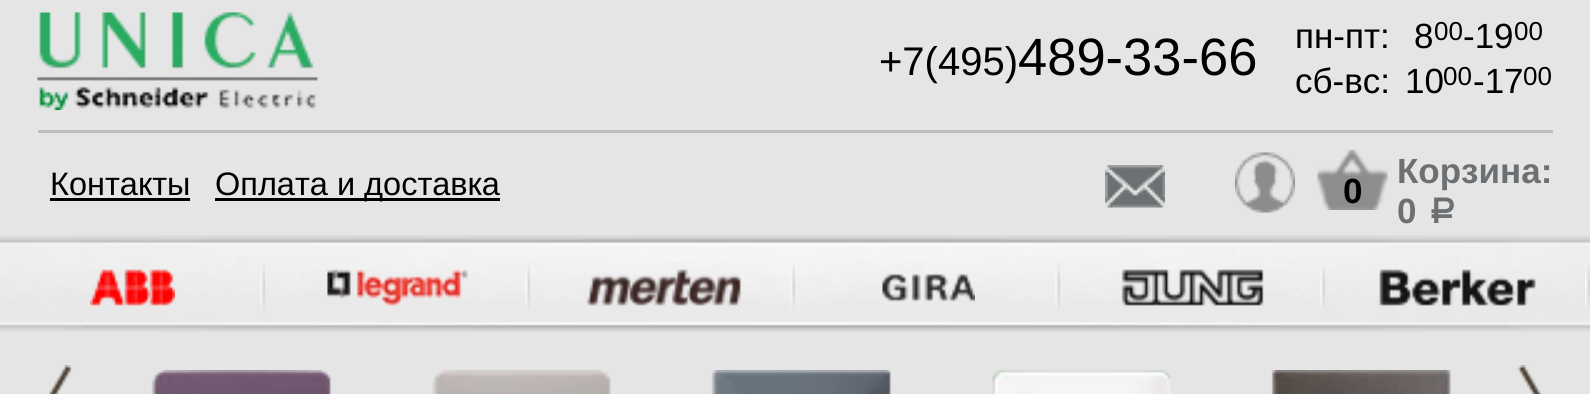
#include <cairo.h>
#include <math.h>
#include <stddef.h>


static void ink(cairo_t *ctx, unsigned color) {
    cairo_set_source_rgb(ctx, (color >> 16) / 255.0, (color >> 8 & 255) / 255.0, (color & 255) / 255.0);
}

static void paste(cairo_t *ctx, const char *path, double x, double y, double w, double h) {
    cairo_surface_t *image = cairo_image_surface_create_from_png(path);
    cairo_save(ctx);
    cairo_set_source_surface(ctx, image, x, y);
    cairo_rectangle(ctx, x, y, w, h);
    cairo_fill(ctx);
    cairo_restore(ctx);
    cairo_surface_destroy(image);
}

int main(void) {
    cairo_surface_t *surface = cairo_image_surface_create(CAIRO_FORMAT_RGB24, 1590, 394);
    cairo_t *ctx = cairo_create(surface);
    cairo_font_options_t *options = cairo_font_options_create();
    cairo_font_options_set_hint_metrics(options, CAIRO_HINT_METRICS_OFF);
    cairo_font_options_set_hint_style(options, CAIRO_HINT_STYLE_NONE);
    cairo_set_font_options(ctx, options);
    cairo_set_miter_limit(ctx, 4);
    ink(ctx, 0xE5E5E5);
    cairo_paint(ctx);
    paste(ctx, "media/1.png", 37, 12, 281, 98);
    cairo_select_font_face(ctx, "Liberation Sans", CAIRO_FONT_SLANT_NORMAL, CAIRO_FONT_WEIGHT_NORMAL);
    cairo_set_font_size(ctx, 40);
    ink(ctx, 0x000000);
    cairo_move_to(ctx, 879, 75);
    cairo_show_text(ctx, "+7(495)");
    cairo_set_font_size(ctx, 52.5);
    cairo_move_to(ctx, 1018, 75);
    cairo_show_text(ctx, "489-33-66");
    cairo_set_font_size(ctx, 35);
    cairo_move_to(ctx, 1295, 48);
    cairo_show_text(ctx, "пн-пт:");
    cairo_move_to(ctx, 1414, 48);
    cairo_show_text(ctx, "8");
    cairo_set_font_size(ctx, 26);
    cairo_move_to(ctx, 1434, 40);
    cairo_show_text(ctx, "00");
    cairo_set_font_size(ctx, 35);
    cairo_move_to(ctx, 1463, 48);
    cairo_show_text(ctx, "-19");
    cairo_set_font_size(ctx, 26);
    cairo_move_to(ctx, 1514, 40);
    cairo_show_text(ctx, "00");
    cairo_set_font_size(ctx, 35);
    cairo_move_to(ctx, 1295, 93);
    cairo_show_text(ctx, "сб-вс:");
    cairo_move_to(ctx, 1405, 93);
    cairo_show_text(ctx, "10");
    cairo_set_font_size(ctx, 26);
    cairo_move_to(ctx, 1443, 85);
    cairo_show_text(ctx, "00");
    cairo_set_font_size(ctx, 35);
    cairo_move_to(ctx, 1473, 93);
    cairo_show_text(ctx, "-17");
    cairo_set_font_size(ctx, 26);
    cairo_move_to(ctx, 1523, 85);
    cairo_show_text(ctx, "00");
    ink(ctx, 0xBFBFBF);
    cairo_rectangle(ctx, 38, 130, 1515, 3);
    cairo_fill(ctx);
    cairo_set_font_size(ctx, 32.5);
    ink(ctx, 0x000000);
    cairo_move_to(ctx, 50, 195);
    cairo_show_text(ctx, "Контакты");
    cairo_rectangle(ctx, 50, 198, 140, 3);
    cairo_fill(ctx);
    cairo_rectangle(ctx, 215, 198, 285, 3);
    cairo_fill(ctx);
    cairo_move_to(ctx, 215, 195);
    cairo_show_text(ctx, "Оплата и доставка");
    paste(ctx, "media/2.png", 1105, 165, 60, 43);
    paste(ctx, "media/3.png", 1235, 152, 60, 61);
    paste(ctx, "media/4.png", 1317, 150, 71, 60);
    cairo_select_font_face(ctx, "Liberation Sans", CAIRO_FONT_SLANT_NORMAL, CAIRO_FONT_WEIGHT_BOLD);
    cairo_set_font_size(ctx, 35);
    cairo_move_to(ctx, 1343, 203);
    cairo_show_text(ctx, "0");
    ink(ctx, 0x6C7072);
    cairo_move_to(ctx, 1397, 183);
    cairo_show_text(ctx, "Корзина:");
    cairo_move_to(ctx, 1397, 223);
    cairo_show_text(ctx, "0");
    cairo_select_font_face(ctx, "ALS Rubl", CAIRO_FONT_SLANT_NORMAL, CAIRO_FONT_WEIGHT_BOLD);
    cairo_move_to(ctx, 1426, 223);
    cairo_show_text(ctx, "a");
    paste(ctx, "media/5.png", 0, 235, 1590, 97);
    paste(ctx, "media/6.png", 90, 269, 85, 37);
    paste(ctx, "media/7.png", 260, 263, 5, 46);
    paste(ctx, "media/8.png", 327, 269, 141, 37);
    paste(ctx, "media/9.png", 525, 263, 5, 46);
    paste(ctx, "media/10.png", 586, 269, 155, 37);
    paste(ctx, "media/11.png", 790, 263, 5, 47);
    paste(ctx, "media/12.png", 882, 273, 93, 29);
    paste(ctx, "media/13.png", 1055, 263, 5, 46);
    paste(ctx, "media/14.png", 1121, 269, 143, 37);
    paste(ctx, "media/15.png", 1320, 263, 5, 46);
    paste(ctx, "media/16.png", 1379, 269, 157, 37);
    paste(ctx, "media/17.png", 1585, 265, 5, 43);
    paste(ctx, "media/18.png", 49, 365, 24, 29);
    paste(ctx, "media/19.png", 151, 370, 180, 24);
    paste(ctx, "media/20.png", 432, 370, 179, 24);
    paste(ctx, "media/21.png", 711, 370, 180, 24);
    paste(ctx, "media/22.png", 992, 370, 179, 24);
    paste(ctx, "media/23.png", 1271, 370, 180, 24);
    paste(ctx, "media/24.png", 1517, 365, 24, 29);
    cairo_surface_write_to_png(surface, "image.png");
    cairo_font_options_destroy(options);
    cairo_destroy(ctx);
    cairo_surface_destroy(surface);
    return 0;
}
